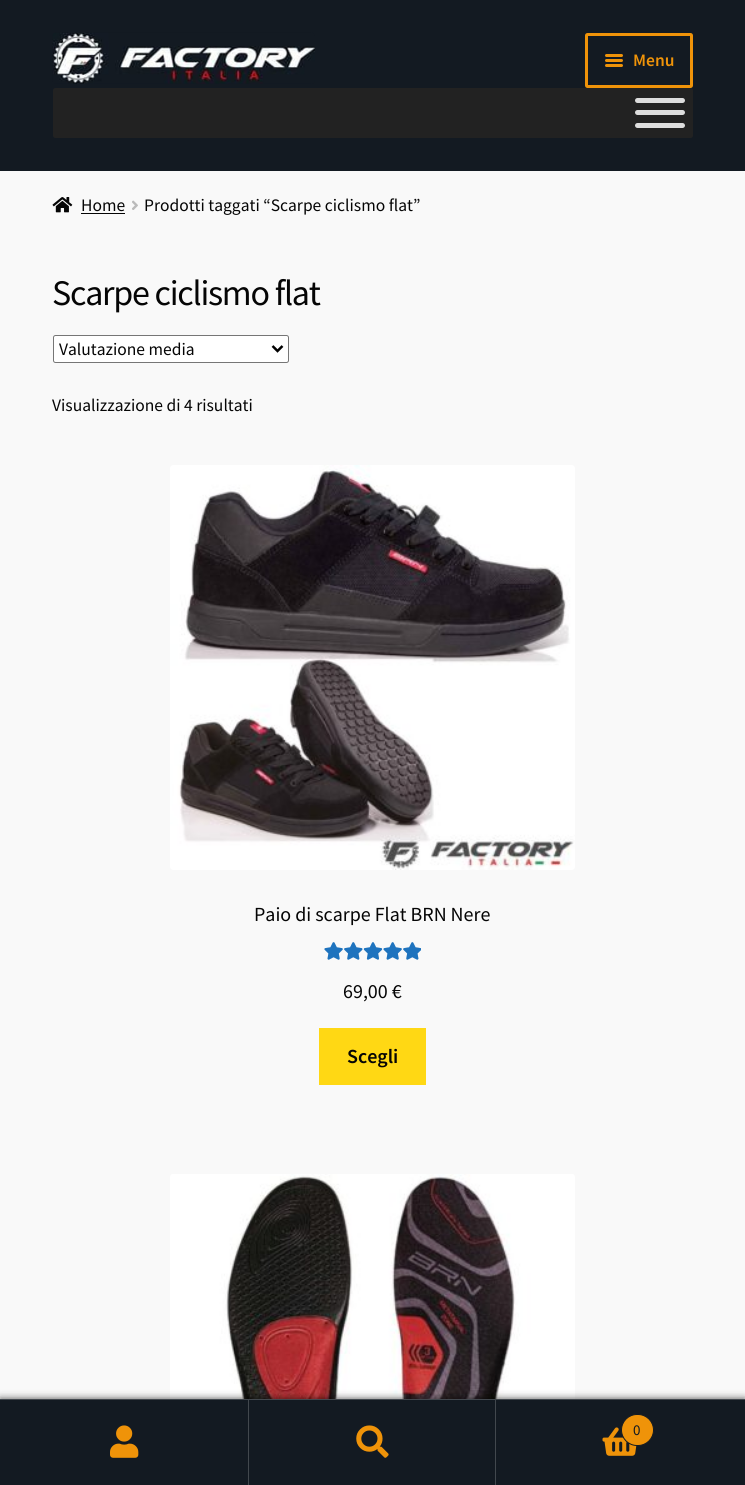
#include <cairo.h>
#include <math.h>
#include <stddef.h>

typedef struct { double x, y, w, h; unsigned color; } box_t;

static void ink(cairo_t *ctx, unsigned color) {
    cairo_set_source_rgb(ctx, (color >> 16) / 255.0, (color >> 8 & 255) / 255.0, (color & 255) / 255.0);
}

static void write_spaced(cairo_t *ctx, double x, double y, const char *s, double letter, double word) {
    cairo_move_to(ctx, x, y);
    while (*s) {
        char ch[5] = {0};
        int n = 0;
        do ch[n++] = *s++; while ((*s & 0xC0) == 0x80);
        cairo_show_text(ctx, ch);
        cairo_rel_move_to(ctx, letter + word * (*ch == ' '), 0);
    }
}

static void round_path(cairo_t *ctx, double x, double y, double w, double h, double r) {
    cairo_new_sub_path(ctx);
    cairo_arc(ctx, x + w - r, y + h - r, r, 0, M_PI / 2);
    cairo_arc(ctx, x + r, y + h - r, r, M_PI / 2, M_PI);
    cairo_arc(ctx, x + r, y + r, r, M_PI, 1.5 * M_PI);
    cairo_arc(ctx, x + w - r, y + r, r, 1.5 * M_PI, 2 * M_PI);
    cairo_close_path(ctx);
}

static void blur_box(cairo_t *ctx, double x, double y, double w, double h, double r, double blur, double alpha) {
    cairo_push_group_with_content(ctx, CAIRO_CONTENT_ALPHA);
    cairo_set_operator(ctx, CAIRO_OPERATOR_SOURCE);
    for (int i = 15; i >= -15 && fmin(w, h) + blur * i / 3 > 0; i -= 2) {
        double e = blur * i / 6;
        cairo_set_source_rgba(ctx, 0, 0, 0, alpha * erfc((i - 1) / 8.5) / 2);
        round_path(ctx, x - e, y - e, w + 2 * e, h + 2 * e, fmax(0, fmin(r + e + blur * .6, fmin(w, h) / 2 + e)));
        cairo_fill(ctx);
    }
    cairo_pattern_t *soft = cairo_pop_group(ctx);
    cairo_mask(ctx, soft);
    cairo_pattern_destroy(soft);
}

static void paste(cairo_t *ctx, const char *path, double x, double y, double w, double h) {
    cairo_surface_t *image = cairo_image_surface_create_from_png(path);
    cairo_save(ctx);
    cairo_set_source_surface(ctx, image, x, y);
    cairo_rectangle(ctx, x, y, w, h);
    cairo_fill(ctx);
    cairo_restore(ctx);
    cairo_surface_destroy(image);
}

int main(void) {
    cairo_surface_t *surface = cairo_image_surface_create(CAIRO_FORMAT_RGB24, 745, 1485);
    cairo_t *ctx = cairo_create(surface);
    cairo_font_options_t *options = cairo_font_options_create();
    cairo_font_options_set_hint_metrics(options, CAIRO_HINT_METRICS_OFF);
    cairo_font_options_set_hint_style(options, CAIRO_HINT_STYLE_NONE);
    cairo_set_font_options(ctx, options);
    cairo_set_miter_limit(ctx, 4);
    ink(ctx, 0xF9F9F9);
    cairo_paint(ctx);
    ink(ctx, 0x131A22);
    cairo_rectangle(ctx, 0, 0, 745, 171);
    cairo_fill(ctx);
    paste(ctx, "media/1.png", 52, 32, 263, 52);
    round_path(ctx, 586.5, 34.5, 105, 52, 1);
    ink(ctx, 0xEF9309);
    cairo_set_line_width(ctx, 3);
    cairo_stroke(ctx);
    round_path(ctx, 605, 54, 18, 3, 1.5);
    cairo_fill(ctx);
    round_path(ctx, 605, 59, 18, 3, 1.5);
    cairo_fill(ctx);
    cairo_select_font_face(ctx, "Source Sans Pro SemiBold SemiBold", CAIRO_FONT_SLANT_NORMAL, CAIRO_FONT_WEIGHT_NORMAL);
    cairo_set_font_size(ctx, 17.5);
    cairo_move_to(ctx, 633, 66);
    cairo_show_text(ctx, "Menu");
    round_path(ctx, 605, 64, 18, 3, 1.5);
    cairo_fill(ctx);
    ink(ctx, 0x222222);
    round_path(ctx, 53, 88, 640, 50, 2.5);
    cairo_fill(ctx);
    ink(ctx, 0xDDDDDD);
    round_path(ctx, 635, 98, 50, 5, 2.5);
    cairo_fill(ctx);
    round_path(ctx, 635, 110, 50, 5, 2.5);
    cairo_fill(ctx);
    round_path(ctx, 635, 123, 50, 5, 2.5);
    cairo_fill(ctx);
    paste(ctx, "media/2.png", 52, 197, 21, 16);
    cairo_select_font_face(ctx, "Source Sans Pro", CAIRO_FONT_SLANT_NORMAL, CAIRO_FONT_WEIGHT_NORMAL);
    ink(ctx, 0x050505);
    cairo_move_to(ctx, 81, 211);
    cairo_show_text(ctx, "Home");
    cairo_rectangle(ctx, 81, 213, 44, 1);
    cairo_fill(ctx);
    paste(ctx, "media/3.png", 132, 200, 6, 10);
    cairo_move_to(ctx, 144, 211);
    cairo_show_text(ctx, "Prodotti taggati “Scarpe ciclismo flat”");
    cairo_set_font_size(ctx, 36);
    write_spaced(ctx, 52, 305, "Scarpe ciclismo flat", -1.25, 0);
    ink(ctx, 0xFFFFFF);
    round_path(ctx, 53.5, 335.5, 235, 27, 2);
    cairo_fill_preserve(ctx);
    ink(ctx, 0x767676);
    cairo_set_line_width(ctx, 1);
    cairo_stroke(ctx);
    cairo_new_path(ctx);
    cairo_move_to(ctx, 272.5, 346);
    cairo_line_to(ctx, 277.5, 351);
    cairo_line_to(ctx, 282.5, 346);
    ink(ctx, 0x000000);
    cairo_set_line_width(ctx, 2.5);
    cairo_stroke(ctx);
    cairo_set_font_size(ctx, 17.5);
    ink(ctx, 0x050505);
    cairo_move_to(ctx, 59, 355);
    cairo_show_text(ctx, "Valutazione media");
    cairo_move_to(ctx, 52, 411);
    cairo_show_text(ctx, "Visualizzazione di 4 risultati");
    paste(ctx, "media/4.png", 170, 465, 405, 405);
    cairo_set_font_size(ctx, 20);
    cairo_move_to(ctx, 254, 921);
    cairo_show_text(ctx, "Paio di scarpe Flat BRN Nere");
    paste(ctx, "media/5.png", 324, 942, 97, 18);
    paste(ctx, "media/6.png", 324, 942, 97, 18);
    cairo_move_to(ctx, 343, 998);
    cairo_show_text(ctx, "69,00 €");
    ink(ctx, 0xFFD814);
    cairo_rectangle(ctx, 319, 1028, 107, 57);
    cairo_fill(ctx);
    cairo_select_font_face(ctx, "Source Sans Pro SemiBold SemiBold", CAIRO_FONT_SLANT_NORMAL, CAIRO_FONT_WEIGHT_NORMAL);
    ink(ctx, 0x050505);
    cairo_move_to(ctx, 347, 1063);
    cairo_show_text(ctx, "Scegli");
    paste(ctx, "media/7.png", 170, 1174, 405, 225);
    ink(ctx, 0x000000);
    blur_box(ctx, 0, 1399, 745, 86, 0, 4, 0.7);
    {
        static const box_t items[] = {
            {0, 1399, 745, 1, 0x42484E},
            {0, 1400, 248, 85, 0x131A22},
            {248, 1400, 1, 85, 0x42484E},
        };
        for (size_t i = 0; i < sizeof items / sizeof *items; i++) {
            ink(ctx, items[i].color);
            cairo_rectangle(ctx, items[i].x, items[i].y, items[i].w, items[i].h);
            cairo_fill(ctx);
        }
    }
    paste(ctx, "media/8.png", 110, 1425, 29, 33);
    ink(ctx, 0x131A22);
    cairo_rectangle(ctx, 249, 1400, 246, 85);
    cairo_fill(ctx);
    ink(ctx, 0x42484E);
    cairo_rectangle(ctx, 495, 1400, 1, 85);
    cairo_fill(ctx);
    paste(ctx, "media/9.png", 356, 1425, 33, 33);
    ink(ctx, 0x131A22);
    cairo_rectangle(ctx, 496, 1400, 249, 85);
    cairo_fill(ctx);
    paste(ctx, "media/10.png", 602, 1427, 35, 29);
    ink(ctx, 0xEF9309);
    round_path(ctx, 621.5, 1414.5, 32, 31, 15.5);
    cairo_fill_preserve(ctx);
    ink(ctx, 0x131A22);
    cairo_set_line_width(ctx, 1);
    cairo_stroke(ctx);
    cairo_select_font_face(ctx, "Source Sans Pro", CAIRO_FONT_SLANT_NORMAL, CAIRO_FONT_WEIGHT_NORMAL);
    cairo_set_font_size(ctx, 15);
    cairo_move_to(ctx, 633, 1435);
    cairo_show_text(ctx, "0");
    cairo_surface_write_to_png(surface, "image.png");
    cairo_font_options_destroy(options);
    cairo_destroy(ctx);
    cairo_surface_destroy(surface);
    return 0;
}
